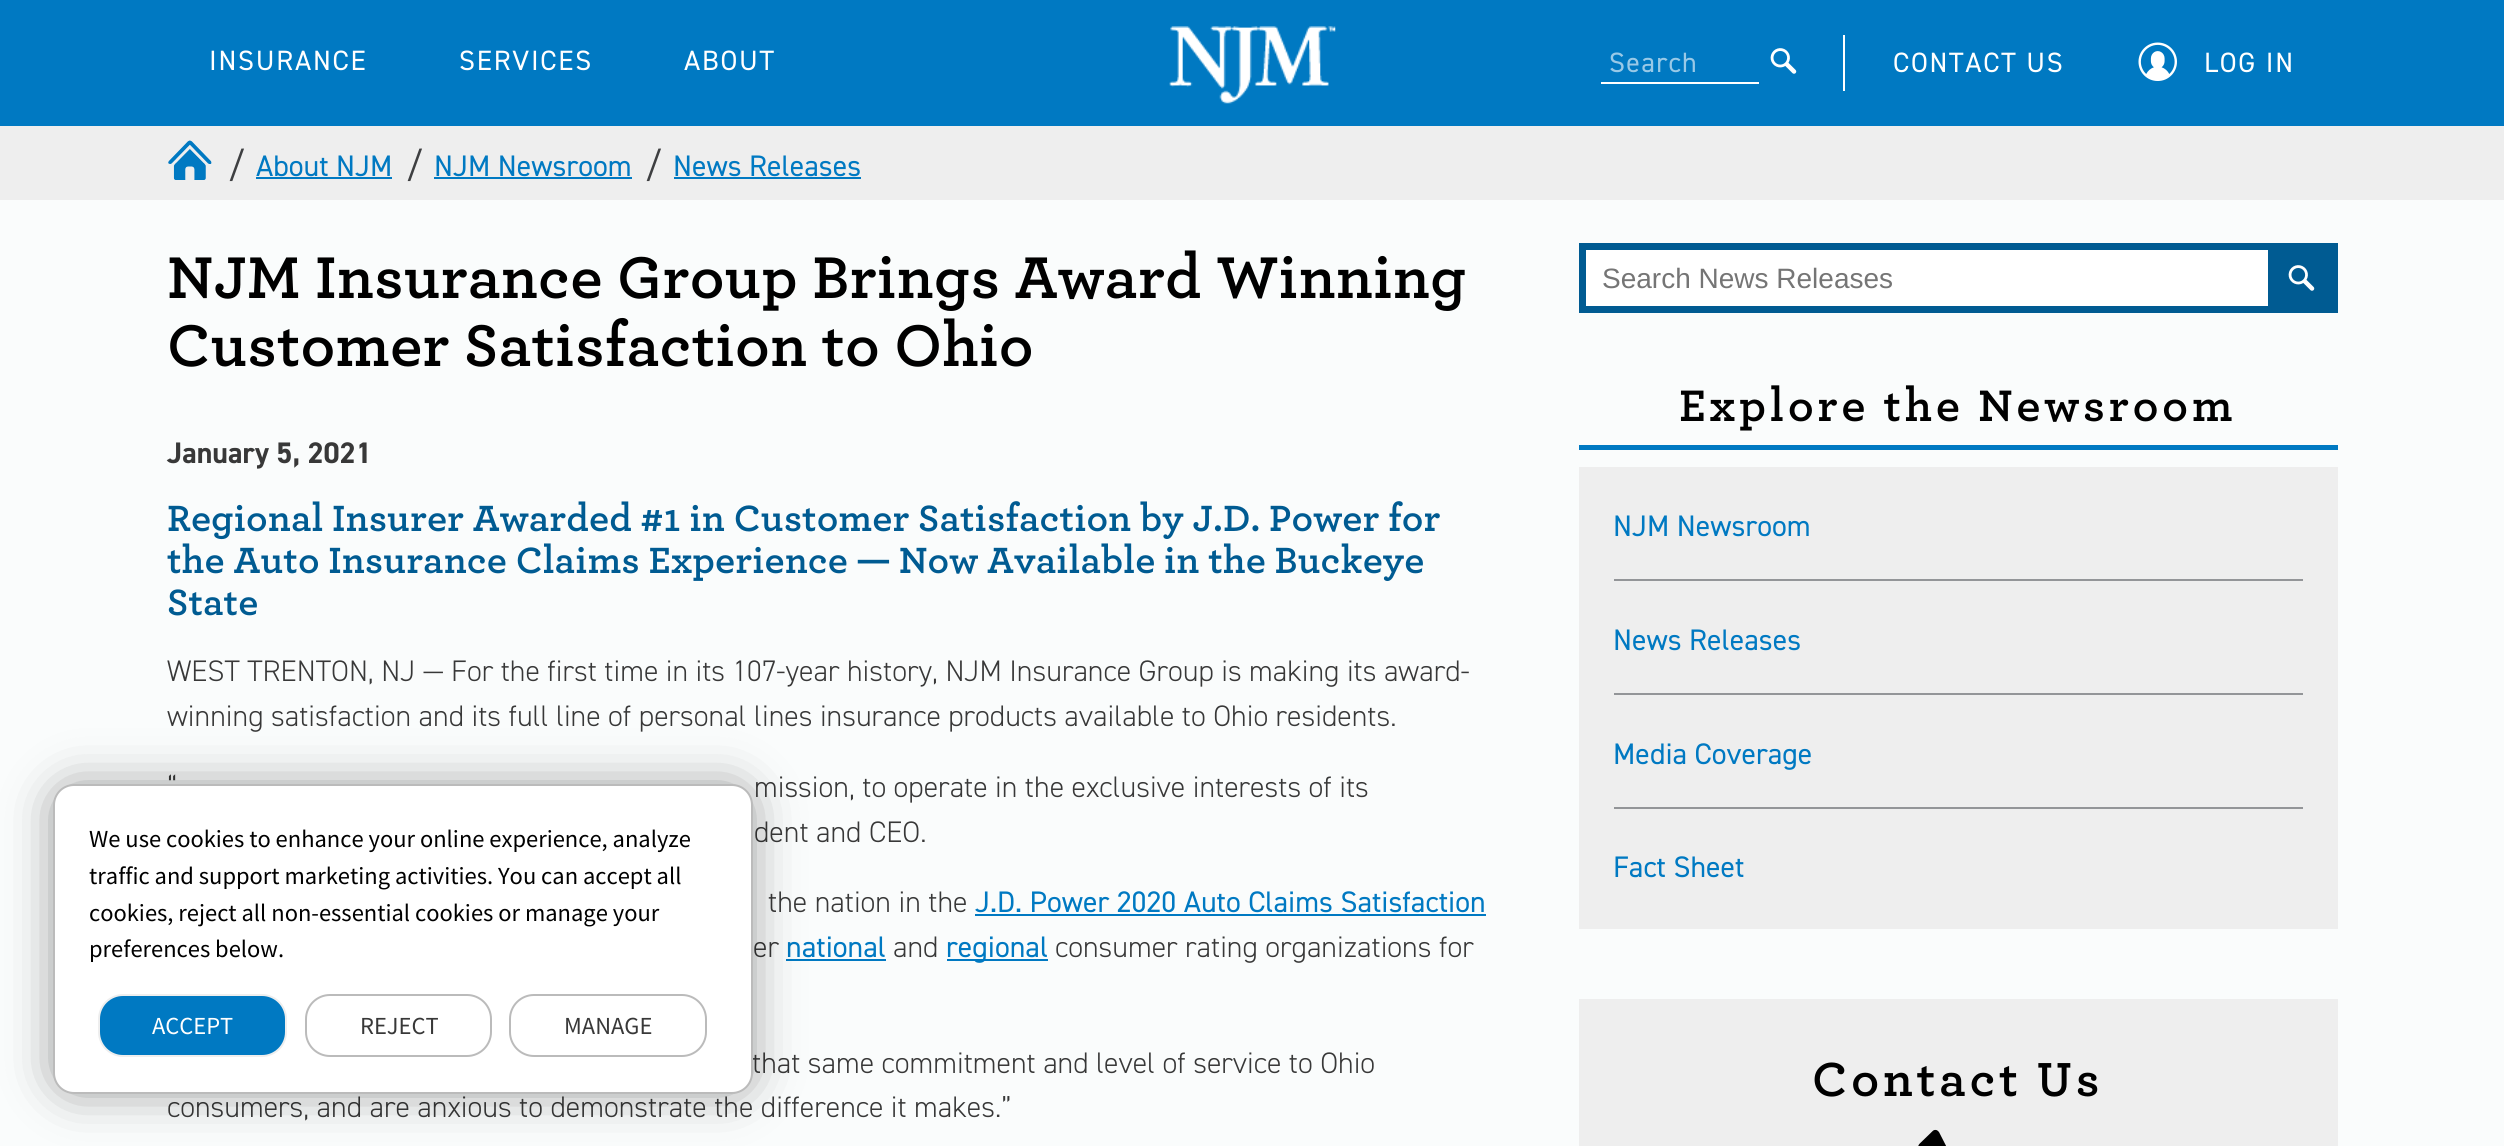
#include <cairo.h>
#include <math.h>
#include <stddef.h>

typedef struct { double x, y; const char *s; } line_t;

static void ink(cairo_t *ctx, unsigned color) {
    cairo_set_source_rgb(ctx, (color >> 16) / 255.0, (color >> 8 & 255) / 255.0, (color & 255) / 255.0);
}

static void write_spaced(cairo_t *ctx, double x, double y, const char *s, double letter, double word) {
    cairo_move_to(ctx, x, y);
    while (*s) {
        char ch[5] = {0};
        int n = 0;
        do ch[n++] = *s++; while ((*s & 0xC0) == 0x80);
        cairo_show_text(ctx, ch);
        cairo_rel_move_to(ctx, letter + word * (*ch == ' '), 0);
    }
}

static void round_path(cairo_t *ctx, double x, double y, double w, double h, double r) {
    cairo_new_sub_path(ctx);
    cairo_arc(ctx, x + w - r, y + h - r, r, 0, M_PI / 2);
    cairo_arc(ctx, x + r, y + h - r, r, M_PI / 2, M_PI);
    cairo_arc(ctx, x + r, y + r, r, M_PI, 1.5 * M_PI);
    cairo_arc(ctx, x + w - r, y + r, r, 1.5 * M_PI, 2 * M_PI);
    cairo_close_path(ctx);
}

static void blur_box(cairo_t *ctx, double x, double y, double w, double h, double r, double blur, double alpha) {
    cairo_push_group_with_content(ctx, CAIRO_CONTENT_ALPHA);
    cairo_set_operator(ctx, CAIRO_OPERATOR_SOURCE);
    for (int i = 15; i >= -15 && fmin(w, h) + blur * i / 3 > 0; i -= 2) {
        double e = blur * i / 6;
        cairo_set_source_rgba(ctx, 0, 0, 0, alpha * erfc((i - 1) / 8.5) / 2);
        round_path(ctx, x - e, y - e, w + 2 * e, h + 2 * e, fmax(0, fmin(r + e + blur * .6, fmin(w, h) / 2 + e)));
        cairo_fill(ctx);
    }
    cairo_pattern_t *soft = cairo_pop_group(ctx);
    cairo_mask(ctx, soft);
    cairo_pattern_destroy(soft);
}

static void paste(cairo_t *ctx, const char *path, double x, double y, double w, double h) {
    cairo_surface_t *image = cairo_image_surface_create_from_png(path);
    cairo_save(ctx);
    cairo_set_source_surface(ctx, image, x, y);
    cairo_rectangle(ctx, x, y, w, h);
    cairo_fill(ctx);
    cairo_restore(ctx);
    cairo_surface_destroy(image);
}

int main(void) {
    cairo_surface_t *surface = cairo_image_surface_create(CAIRO_FORMAT_RGB24, 2504, 1146);
    cairo_t *ctx = cairo_create(surface);
    cairo_font_options_t *options = cairo_font_options_create();
    cairo_font_options_set_hint_metrics(options, CAIRO_HINT_METRICS_OFF);
    cairo_font_options_set_hint_style(options, CAIRO_HINT_STYLE_NONE);
    cairo_set_font_options(ctx, options);
    cairo_set_miter_limit(ctx, 4);
    ink(ctx, 0xFAFCFC);
    cairo_paint(ctx);
    ink(ctx, 0x0079C2);
    cairo_rectangle(ctx, 0, 0, 2504, 126);
    cairo_fill(ctx);
    cairo_select_font_face(ctx, "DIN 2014", CAIRO_FONT_SLANT_NORMAL, CAIRO_FONT_WEIGHT_NORMAL);
    cairo_set_font_size(ctx, 28);
    ink(ctx, 0xFFFFFF);
    {
        static const line_t items[] = {
            {209, 70, "INSURANCE"},
            {459, 70, "SERVICES"},
            {684, 70, "ABOUT"},
        };
        for (size_t i = 0; i < sizeof items / sizeof *items; i++) {
            write_spaced(ctx, items[i].x, items[i].y, items[i].s, 1.75, 0);
        }
    }
    paste(ctx, "media/1.png", 1169, 26, 167, 78);
    cairo_rectangle(ctx, 1843, 35, 2, 56);
    cairo_fill(ctx);
    cairo_rectangle(ctx, 1601, 82, 158, 2);
    cairo_fill(ctx);
    ink(ctx, 0x99C9E7);
    write_spaced(ctx, 1609, 72, "Search", 1.25, 0);
    paste(ctx, "media/2.png", 1770, 48, 27, 26);
    ink(ctx, 0xFFFFFF);
    write_spaced(ctx, 1893, 72, "CONTACT US", 1.75, 0);
    paste(ctx, "media/3.png", 2138, 42, 39, 39);
    write_spaced(ctx, 2204, 72, "LOG IN", 1.75, 0);
    ink(ctx, 0xEEEEEE);
    cairo_rectangle(ctx, 0, 126, 2504, 74);
    cairo_fill(ctx);
    paste(ctx, "media/4.png", 168, 140, 44, 40);
    cairo_set_font_size(ctx, 35);
    ink(ctx, 0x3E3F41);
    cairo_move_to(ctx, 228, 177);
    cairo_show_text(ctx, "/");
    cairo_set_font_size(ctx, 29.75);
    ink(ctx, 0x0079C2);
    cairo_move_to(ctx, 256, 176);
    cairo_show_text(ctx, "About NJM");
    cairo_rectangle(ctx, 256, 177, 136, 2);
    cairo_fill(ctx);
    cairo_set_font_size(ctx, 35);
    ink(ctx, 0x3E3F41);
    cairo_move_to(ctx, 406, 177);
    cairo_show_text(ctx, "/");
    cairo_set_font_size(ctx, 29.75);
    ink(ctx, 0x0079C2);
    cairo_move_to(ctx, 434, 176);
    cairo_show_text(ctx, "NJM Newsroom");
    cairo_rectangle(ctx, 434, 177, 198, 2);
    cairo_fill(ctx);
    cairo_set_font_size(ctx, 35);
    ink(ctx, 0x3E3F41);
    cairo_move_to(ctx, 645, 177);
    cairo_show_text(ctx, "/");
    cairo_set_font_size(ctx, 29.75);
    ink(ctx, 0x0079C2);
    cairo_move_to(ctx, 673, 176);
    cairo_show_text(ctx, "News Releases");
    cairo_rectangle(ctx, 674, 177, 187, 2);
    cairo_fill(ctx);
    cairo_select_font_face(ctx, "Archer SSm", CAIRO_FONT_SLANT_NORMAL, CAIRO_FONT_WEIGHT_BOLD);
    cairo_set_font_size(ctx, 56);
    ink(ctx, 0x000000);
    cairo_move_to(ctx, 167, 298);
    cairo_show_text(ctx, "NJM Insurance Group Brings Award Winning");
    cairo_move_to(ctx, 167, 366);
    cairo_show_text(ctx, "Customer Satisfaction to Ohio");
    cairo_select_font_face(ctx, "DIN 2014", CAIRO_FONT_SLANT_NORMAL, CAIRO_FONT_WEIGHT_BOLD);
    cairo_set_font_size(ctx, 29.75);
    ink(ctx, 0x383838);
    cairo_move_to(ctx, 167, 463);
    cairo_show_text(ctx, "January 5, 2021");
    cairo_select_font_face(ctx, "Archer SSm", CAIRO_FONT_SLANT_NORMAL, CAIRO_FONT_WEIGHT_BOLD);
    cairo_set_font_size(ctx, 34.8);
    ink(ctx, 0x005B92);
    write_spaced(ctx, 167, 531, "Regional Insurer Awarded #1 in Customer Satisfaction by J.D. Power for", 0, -0.25);
    write_spaced(ctx, 167, 573, "the Auto Insurance Claims Experience — Now Available in the Buckeye", 0, -0.25);
    cairo_move_to(ctx, 167, 615);
    cairo_show_text(ctx, "State");
    cairo_select_font_face(ctx, "DIN 2014 Light", CAIRO_FONT_SLANT_NORMAL, CAIRO_FONT_WEIGHT_NORMAL);
    cairo_set_font_size(ctx, 29.75);
    ink(ctx, 0x383838);
    {
        static const line_t items[] = {
            {167, 681, "WEST TRENTON, NJ — For the first time in its 107-year history, NJM Insurance Group is making its award-"},
            {167, 726, "winning satisfaction and its full line of personal lines insurance products available to Ohio residents."},
            {167, 797, "“"},
            {754, 797, "mission, to operate in the exclusive interests of its"},
            {754, 842, "dent and CEO."},
            {768, 912, "the nation in the"},
        };
        for (size_t i = 0; i < sizeof items / sizeof *items; i++) {
            cairo_move_to(ctx, items[i].x, items[i].y);
            cairo_show_text(ctx, items[i].s);
        }
    }
    cairo_select_font_face(ctx, "DIN 2014", CAIRO_FONT_SLANT_NORMAL, CAIRO_FONT_WEIGHT_NORMAL);
    ink(ctx, 0x0079C2);
    cairo_move_to(ctx, 975, 912);
    cairo_show_text(ctx, "J.D. Power 2020 Auto Claims Satisfaction");
    cairo_rectangle(ctx, 975, 914, 511, 2);
    cairo_fill(ctx);
    cairo_select_font_face(ctx, "DIN 2014 Light", CAIRO_FONT_SLANT_NORMAL, CAIRO_FONT_WEIGHT_NORMAL);
    ink(ctx, 0x383838);
    cairo_move_to(ctx, 753, 957);
    cairo_show_text(ctx, "er");
    cairo_select_font_face(ctx, "DIN 2014", CAIRO_FONT_SLANT_NORMAL, CAIRO_FONT_WEIGHT_NORMAL);
    ink(ctx, 0x0079C2);
    cairo_move_to(ctx, 786, 957);
    cairo_show_text(ctx, "national");
    cairo_rectangle(ctx, 786, 959, 100, 2);
    cairo_fill(ctx);
    cairo_select_font_face(ctx, "DIN 2014 Light", CAIRO_FONT_SLANT_NORMAL, CAIRO_FONT_WEIGHT_NORMAL);
    ink(ctx, 0x383838);
    cairo_move_to(ctx, 893, 957);
    cairo_show_text(ctx, "and");
    ink(ctx, 0x0079C2);
    cairo_rectangle(ctx, 947, 959, 101, 2);
    cairo_fill(ctx);
    cairo_select_font_face(ctx, "DIN 2014", CAIRO_FONT_SLANT_NORMAL, CAIRO_FONT_WEIGHT_NORMAL);
    cairo_move_to(ctx, 946, 957);
    cairo_show_text(ctx, "regional");
    cairo_select_font_face(ctx, "DIN 2014 Light", CAIRO_FONT_SLANT_NORMAL, CAIRO_FONT_WEIGHT_NORMAL);
    ink(ctx, 0x383838);
    {
        static const line_t items[] = {
            {1055, 957, "consumer rating organizations for"},
            {752, 1073, "that same commitment and level of service to Ohio"},
            {167, 1117, "consumers, and are anxious to demonstrate the difference it makes.”"},
        };
        for (size_t i = 0; i < sizeof items / sizeof *items; i++) {
            cairo_move_to(ctx, items[i].x, items[i].y);
            cairo_show_text(ctx, items[i].s);
        }
    }
    ink(ctx, 0x005B92);
    cairo_rectangle(ctx, 1579, 243, 759, 70);
    cairo_fill(ctx);
    ink(ctx, 0xFFFFFF);
    cairo_rectangle(ctx, 1586, 250, 682, 56);
    cairo_fill(ctx);
    cairo_select_font_face(ctx, "Liberation Sans", CAIRO_FONT_SLANT_NORMAL, CAIRO_FONT_WEIGHT_NORMAL);
    cairo_set_font_size(ctx, 28);
    ink(ctx, 0x757575);
    cairo_move_to(ctx, 1602, 288);
    cairo_show_text(ctx, "Search News Releases");
    paste(ctx, "media/5.png", 2288, 265, 27, 26);
    ink(ctx, 0x0079C2);
    cairo_rectangle(ctx, 1579, 445, 759, 5);
    cairo_fill(ctx);
    cairo_select_font_face(ctx, "Archer SSm", CAIRO_FONT_SLANT_NORMAL, CAIRO_FONT_WEIGHT_BOLD);
    cairo_set_font_size(ctx, 42);
    ink(ctx, 0x000000);
    write_spaced(ctx, 1679, 421, "Explore the Newsroom", 3.5, 0);
    ink(ctx, 0xEEEEEE);
    cairo_rectangle(ctx, 1579, 467, 759, 462);
    cairo_fill(ctx);
    cairo_select_font_face(ctx, "DIN 2014", CAIRO_FONT_SLANT_NORMAL, CAIRO_FONT_WEIGHT_NORMAL);
    cairo_set_font_size(ctx, 29.75);
    ink(ctx, 0x0079C2);
    cairo_move_to(ctx, 1613, 536);
    cairo_show_text(ctx, "NJM Newsroom");
    ink(ctx, 0x939598);
    cairo_rectangle(ctx, 1614, 579, 689, 2);
    cairo_fill(ctx);
    ink(ctx, 0x0079C2);
    cairo_move_to(ctx, 1613, 650);
    cairo_show_text(ctx, "News Releases");
    ink(ctx, 0x939598);
    cairo_rectangle(ctx, 1614, 693, 689, 2);
    cairo_fill(ctx);
    ink(ctx, 0x0079C2);
    cairo_move_to(ctx, 1613, 764);
    cairo_show_text(ctx, "Media Coverage");
    ink(ctx, 0x939598);
    cairo_rectangle(ctx, 1614, 807, 689, 2);
    cairo_fill(ctx);
    ink(ctx, 0x0079C2);
    cairo_move_to(ctx, 1613, 877);
    cairo_show_text(ctx, "Fact Sheet");
    ink(ctx, 0xEEEEEE);
    cairo_rectangle(ctx, 1579, 999, 759, 147);
    cairo_fill(ctx);
    cairo_select_font_face(ctx, "Archer SSm", CAIRO_FONT_SLANT_NORMAL, CAIRO_FONT_WEIGHT_BOLD);
    cairo_set_font_size(ctx, 45.5);
    ink(ctx, 0x000000);
    write_spaced(ctx, 1812, 1096, "Contact Us", 3.5, 0);
    paste(ctx, "media/6.png", 1918, 1129, 28, 17);
    ink(ctx, 0x000000);
    blur_box(ctx, 61, 793, 683, 292, 12, 26, 0.5);
    ink(ctx, 0xFFFFFF);
    round_path(ctx, 54, 785, 698, 308, 20);
    cairo_fill_preserve(ctx);
    ink(ctx, 0xBBBBBB);
    cairo_stroke(ctx);
    cairo_select_font_face(ctx, "Source Sans Pro", CAIRO_FONT_SLANT_NORMAL, CAIRO_FONT_WEIGHT_NORMAL);
    cairo_set_font_size(ctx, 24.5);
    ink(ctx, 0x000000);
    {
        static const line_t items[] = {
            {89, 847, "We use cookies to enhance your online experience, analyze"},
            {89, 884, "traffic and support marketing activities. You can accept all"},
            {89, 921, "cookies, reject all non-essential cookies or manage your"},
            {89, 957, "preferences below."},
        };
        for (size_t i = 0; i < sizeof items / sizeof *items; i++) {
            cairo_move_to(ctx, items[i].x, items[i].y);
            cairo_show_text(ctx, items[i].s);
        }
    }
    ink(ctx, 0x0079C2);
    round_path(ctx, 99, 995, 187, 61, 24);
    cairo_fill_preserve(ctx);
    ink(ctx, 0xEEEEEE);
    cairo_stroke(ctx);
    ink(ctx, 0xFFFFFF);
    cairo_move_to(ctx, 152, 1034);
    cairo_show_text(ctx, "ACCEPT");
    round_path(ctx, 306, 995, 185, 61, 24);
    ink(ctx, 0xBBBBBB);
    cairo_stroke(ctx);
    ink(ctx, 0x383838);
    cairo_move_to(ctx, 360, 1034);
    cairo_show_text(ctx, "REJECT");
    round_path(ctx, 510, 995, 196, 61, 24);
    ink(ctx, 0xBBBBBB);
    cairo_stroke(ctx);
    ink(ctx, 0x383838);
    cairo_move_to(ctx, 564, 1034);
    cairo_show_text(ctx, "MANAGE");
    cairo_surface_write_to_png(surface, "image.png");
    cairo_font_options_destroy(options);
    cairo_destroy(ctx);
    cairo_surface_destroy(surface);
    return 0;
}
